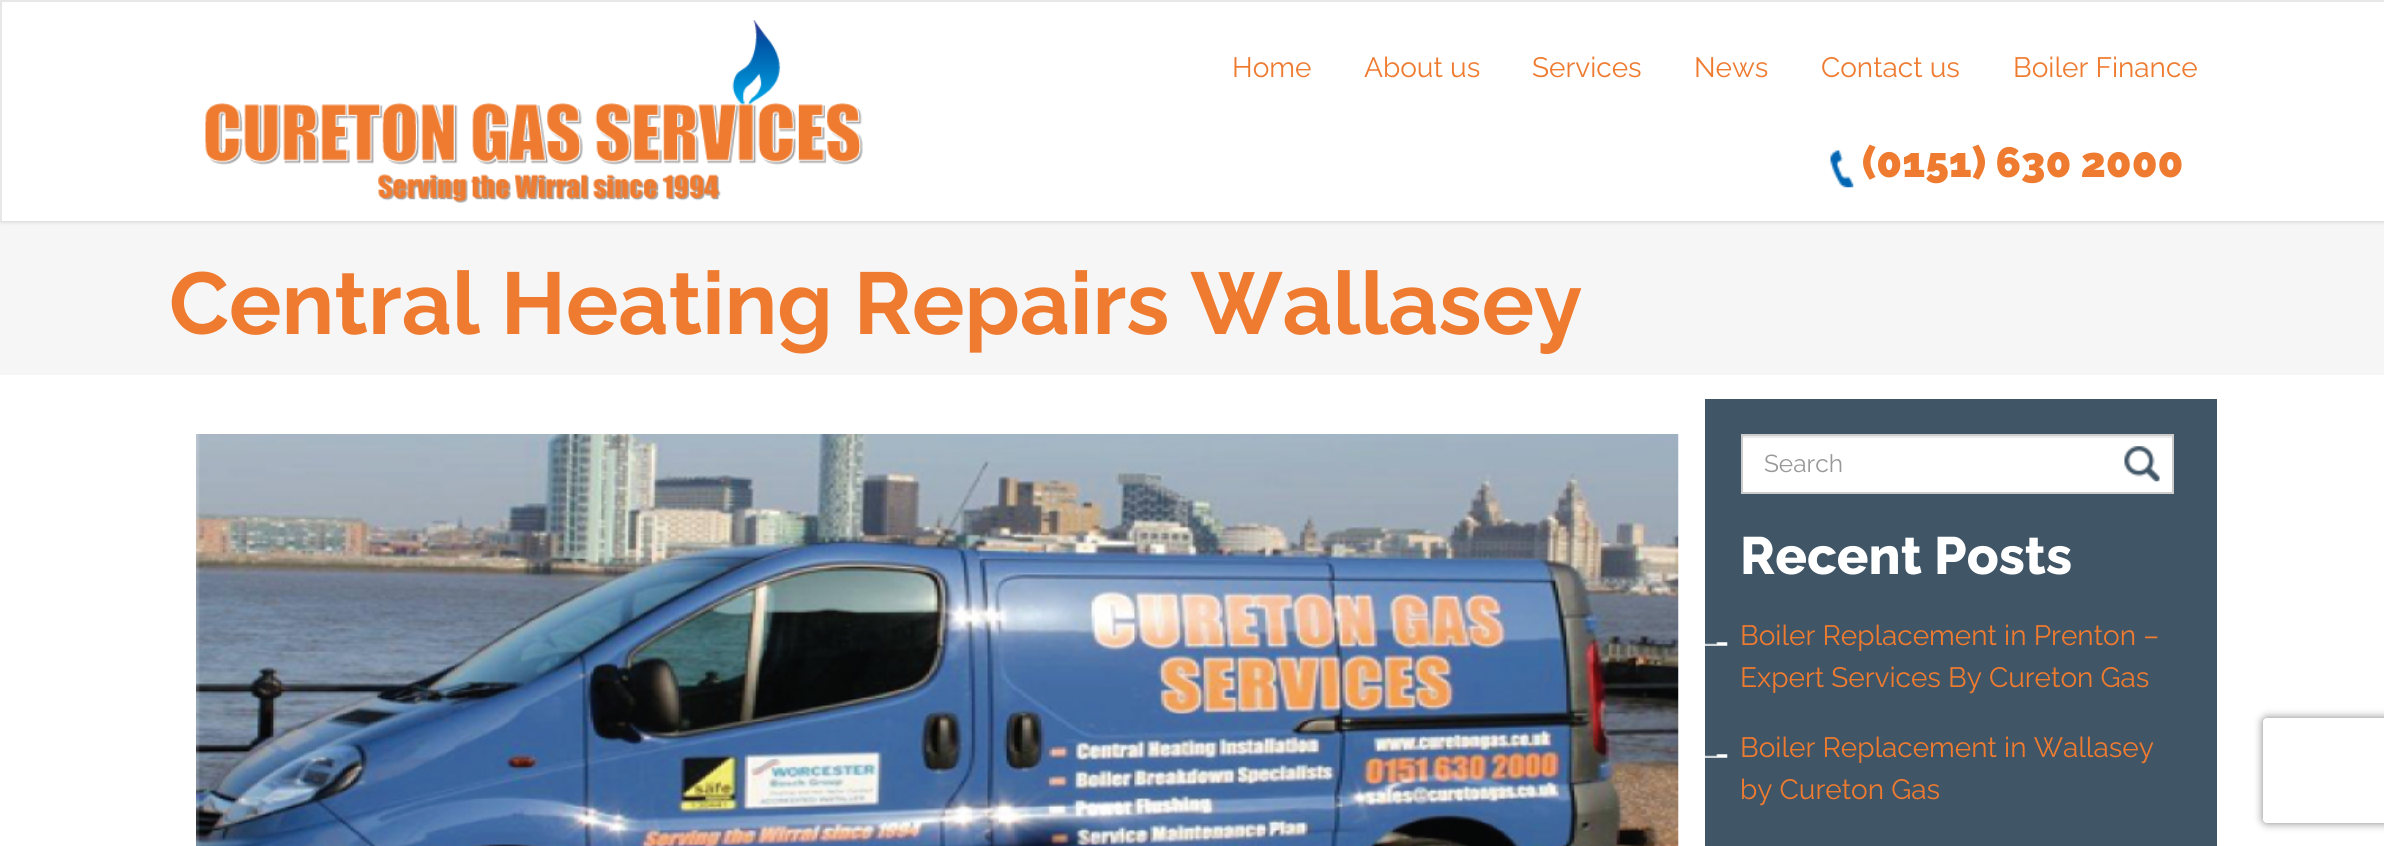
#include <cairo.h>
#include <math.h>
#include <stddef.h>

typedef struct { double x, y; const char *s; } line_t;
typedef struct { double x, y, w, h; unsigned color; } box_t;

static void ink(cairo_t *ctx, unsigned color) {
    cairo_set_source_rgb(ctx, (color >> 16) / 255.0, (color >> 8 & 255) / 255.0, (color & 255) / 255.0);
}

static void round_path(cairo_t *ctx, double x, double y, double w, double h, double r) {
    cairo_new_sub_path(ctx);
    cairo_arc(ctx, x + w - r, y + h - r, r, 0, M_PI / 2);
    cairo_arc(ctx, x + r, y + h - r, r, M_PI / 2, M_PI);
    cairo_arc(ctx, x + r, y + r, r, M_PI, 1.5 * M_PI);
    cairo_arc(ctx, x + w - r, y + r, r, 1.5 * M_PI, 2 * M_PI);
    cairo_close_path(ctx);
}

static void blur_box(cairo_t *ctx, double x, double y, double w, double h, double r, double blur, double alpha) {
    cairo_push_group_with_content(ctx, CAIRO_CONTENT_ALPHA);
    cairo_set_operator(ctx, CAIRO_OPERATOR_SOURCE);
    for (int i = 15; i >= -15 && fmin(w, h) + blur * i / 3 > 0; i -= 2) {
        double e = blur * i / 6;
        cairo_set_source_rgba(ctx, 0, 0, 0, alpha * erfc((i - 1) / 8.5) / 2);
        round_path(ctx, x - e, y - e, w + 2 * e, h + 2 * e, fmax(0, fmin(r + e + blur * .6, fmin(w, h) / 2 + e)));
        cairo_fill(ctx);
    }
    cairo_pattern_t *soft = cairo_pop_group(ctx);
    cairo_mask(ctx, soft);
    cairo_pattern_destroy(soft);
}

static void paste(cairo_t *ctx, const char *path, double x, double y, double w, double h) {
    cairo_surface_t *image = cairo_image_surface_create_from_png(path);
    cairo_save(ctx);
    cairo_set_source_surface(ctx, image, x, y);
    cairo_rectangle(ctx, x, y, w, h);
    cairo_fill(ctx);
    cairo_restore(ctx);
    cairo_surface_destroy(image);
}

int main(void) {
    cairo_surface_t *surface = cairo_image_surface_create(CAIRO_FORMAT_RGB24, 2384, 846);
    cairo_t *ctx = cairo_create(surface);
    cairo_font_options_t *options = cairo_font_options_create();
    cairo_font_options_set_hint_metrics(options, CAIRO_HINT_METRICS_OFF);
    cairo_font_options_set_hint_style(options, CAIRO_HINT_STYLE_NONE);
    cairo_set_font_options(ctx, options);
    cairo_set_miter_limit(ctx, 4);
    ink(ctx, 0xFFFFFF);
    cairo_paint(ctx);
    ink(ctx, 0xF6F6F6);
    cairo_rectangle(ctx, 0, 221, 2384, 154);
    cairo_fill(ctx);
    ink(ctx, 0x000000);
    blur_box(ctx, 0, 0, 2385, 221, 0, 2.5, 0.2);
    {
        static const box_t items[] = {
            {2, 2, 2382, 219, 0xFFFFFF},
            {0, 0, 2384, 2, 0xE7E7E7},
            {0, 0, 2, 221, 0xE7E7E7},
        };
        for (size_t i = 0; i < sizeof items / sizeof *items; i++) {
            ink(ctx, items[i].color);
            cairo_rectangle(ctx, items[i].x, items[i].y, items[i].w, items[i].h);
            cairo_fill(ctx);
        }
    }
    paste(ctx, "media/1.png", 205, 20, 658, 183);
    cairo_select_font_face(ctx, "Raleway", CAIRO_FONT_SLANT_NORMAL, CAIRO_FONT_WEIGHT_NORMAL);
    cairo_set_font_size(ctx, 28);
    ink(ctx, 0xEE7B30);
    {
        static const line_t items[] = {
            {1232, 77, "Home"},
            {1364, 77, "About us"},
            {1532, 77, "Services"},
            {1694, 77, "News"},
            {1821, 77, "Contact us"},
            {2013, 77, "Boiler Finance"},
        };
        for (size_t i = 0; i < sizeof items / sizeof *items; i++) {
            cairo_move_to(ctx, items[i].x, items[i].y);
            cairo_show_text(ctx, items[i].s);
        }
    }
    paste(ctx, "media/2.png", 1830, 150, 24, 38);
    cairo_select_font_face(ctx, "Raleway Black", CAIRO_FONT_SLANT_NORMAL, CAIRO_FONT_WEIGHT_NORMAL);
    cairo_set_font_size(ctx, 42);
    cairo_move_to(ctx, 1862, 177);
    cairo_show_text(ctx, "(0151) 630 2000");
    cairo_select_font_face(ctx, "Raleway", CAIRO_FONT_SLANT_NORMAL, CAIRO_FONT_WEIGHT_BOLD);
    cairo_set_font_size(ctx, 87.5);
    cairo_move_to(ctx, 169, 334);
    cairo_show_text(ctx, "Central Heating Repairs Wallasey");
    paste(ctx, "media/3.png", 196, 434, 1483, 412);
    {
        static const box_t items[] = {
            {1705, 399, 512, 447, 0x405566},
            {1743, 438, 429, 54, 0xFFFFFF},
            {1743, 436, 429, 2, 0xECECEC},
        };
        for (size_t i = 0; i < sizeof items / sizeof *items; i++) {
            ink(ctx, items[i].color);
            cairo_rectangle(ctx, items[i].x, items[i].y, items[i].w, items[i].h);
            cairo_fill(ctx);
        }
    }
    cairo_rectangle(ctx, 1742, 435, 431, 58);
    ink(ctx, 0xCCCCCC);
    cairo_stroke(ctx);
    cairo_select_font_face(ctx, "Raleway", CAIRO_FONT_SLANT_NORMAL, CAIRO_FONT_WEIGHT_NORMAL);
    cairo_set_font_size(ctx, 24.5);
    ink(ctx, 0x999999);
    cairo_move_to(ctx, 1764, 472);
    cairo_show_text(ctx, "Search");
    paste(ctx, "media/4.png", 2124, 446, 36, 36);
    cairo_select_font_face(ctx, "Raleway ExtraBold", CAIRO_FONT_SLANT_NORMAL, CAIRO_FONT_WEIGHT_NORMAL);
    cairo_set_font_size(ctx, 52.5);
    ink(ctx, 0xFFFFFF);
    cairo_move_to(ctx, 1740, 574);
    cairo_show_text(ctx, "Recent Posts");
    paste(ctx, "media/5.png", 1705, 642, 23, 4);
    cairo_select_font_face(ctx, "Raleway", CAIRO_FONT_SLANT_NORMAL, CAIRO_FONT_WEIGHT_NORMAL);
    cairo_set_font_size(ctx, 28);
    ink(ctx, 0xEE7B30);
    cairo_move_to(ctx, 1740, 645);
    cairo_show_text(ctx, "Boiler Replacement in Prenton –");
    cairo_move_to(ctx, 1740, 687);
    cairo_show_text(ctx, "Expert Services By Cureton Gas");
    paste(ctx, "media/5.png", 1705, 754, 23, 4);
    cairo_move_to(ctx, 1740, 757);
    cairo_show_text(ctx, "Boiler Replacement in Wallasey");
    cairo_move_to(ctx, 1740, 799);
    cairo_show_text(ctx, "by Cureton Gas");
    cairo_save(ctx);
    cairo_set_fill_rule(ctx, CAIRO_FILL_RULE_EVEN_ODD);
    cairo_new_path(ctx);
    cairo_move_to(ctx, 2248, 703);
    cairo_line_to(ctx, 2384, 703);
    cairo_line_to(ctx, 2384, 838);
    cairo_line_to(ctx, 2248, 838);
    cairo_close_path(ctx);
    cairo_move_to(ctx, 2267, 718);
    cairo_line_to(ctx, 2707, 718);
    cairo_curve_to(ctx, 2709, 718, 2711, 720, 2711, 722);
    cairo_line_to(ctx, 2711, 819);
    cairo_curve_to(ctx, 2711, 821, 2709, 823, 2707, 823);
    cairo_line_to(ctx, 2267, 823);
    cairo_curve_to(ctx, 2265, 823, 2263, 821, 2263, 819);
    cairo_line_to(ctx, 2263, 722);
    cairo_curve_to(ctx, 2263, 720, 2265, 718, 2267, 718);
    cairo_close_path(ctx);
    cairo_clip(ctx);
    ink(ctx, 0x808080);
    blur_box(ctx, 2263, 718, 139, 105, 4, 4.5, 1);
    cairo_restore(ctx);
    cairo_surface_write_to_png(surface, "image.png");
    cairo_font_options_destroy(options);
    cairo_destroy(ctx);
    cairo_surface_destroy(surface);
    return 0;
}
